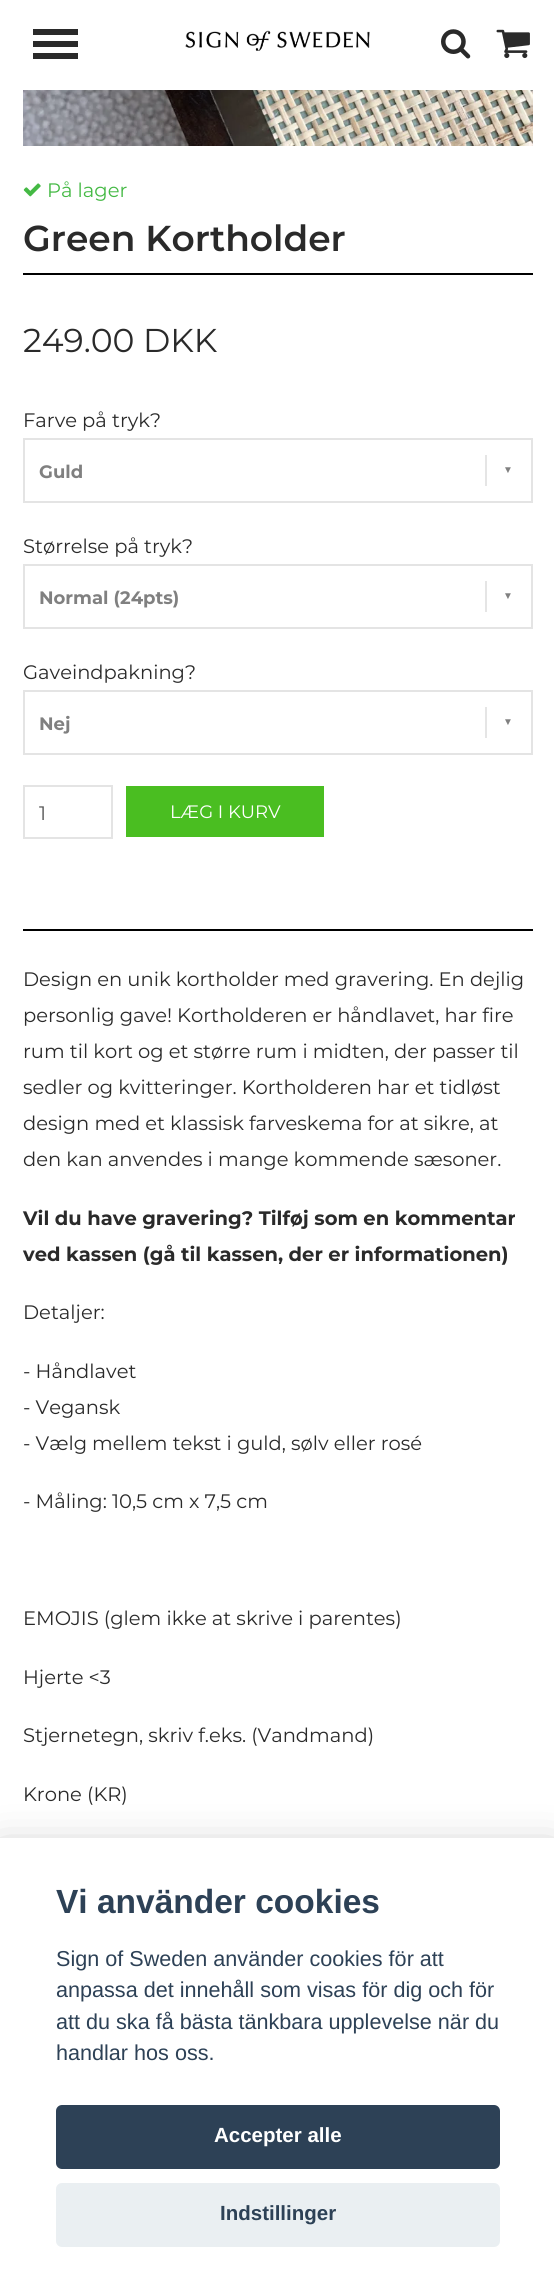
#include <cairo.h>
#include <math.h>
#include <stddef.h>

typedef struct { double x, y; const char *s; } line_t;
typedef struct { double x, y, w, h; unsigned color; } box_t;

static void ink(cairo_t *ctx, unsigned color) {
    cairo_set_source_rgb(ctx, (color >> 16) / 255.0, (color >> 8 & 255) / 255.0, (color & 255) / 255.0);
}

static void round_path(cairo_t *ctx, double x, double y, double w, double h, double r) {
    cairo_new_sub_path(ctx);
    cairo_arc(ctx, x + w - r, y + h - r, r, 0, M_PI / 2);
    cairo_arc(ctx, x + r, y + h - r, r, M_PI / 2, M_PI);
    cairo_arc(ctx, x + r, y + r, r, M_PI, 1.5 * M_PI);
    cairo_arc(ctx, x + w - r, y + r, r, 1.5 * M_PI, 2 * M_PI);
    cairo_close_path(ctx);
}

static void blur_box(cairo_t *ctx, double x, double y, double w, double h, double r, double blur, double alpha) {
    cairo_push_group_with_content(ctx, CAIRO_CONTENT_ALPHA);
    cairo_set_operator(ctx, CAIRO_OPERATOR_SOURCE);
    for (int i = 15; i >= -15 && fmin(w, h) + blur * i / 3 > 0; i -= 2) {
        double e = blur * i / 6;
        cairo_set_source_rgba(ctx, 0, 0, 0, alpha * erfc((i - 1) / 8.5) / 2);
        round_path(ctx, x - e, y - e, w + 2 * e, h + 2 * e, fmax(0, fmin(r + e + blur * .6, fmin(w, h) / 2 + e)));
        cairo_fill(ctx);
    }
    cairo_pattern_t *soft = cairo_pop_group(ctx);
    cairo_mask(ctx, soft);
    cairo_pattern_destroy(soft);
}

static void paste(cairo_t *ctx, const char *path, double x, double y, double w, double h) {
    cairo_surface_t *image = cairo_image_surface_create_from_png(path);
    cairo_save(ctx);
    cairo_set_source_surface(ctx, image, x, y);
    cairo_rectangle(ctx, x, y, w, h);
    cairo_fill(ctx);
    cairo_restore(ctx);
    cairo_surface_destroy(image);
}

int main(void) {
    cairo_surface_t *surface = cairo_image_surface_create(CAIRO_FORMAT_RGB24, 554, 2292);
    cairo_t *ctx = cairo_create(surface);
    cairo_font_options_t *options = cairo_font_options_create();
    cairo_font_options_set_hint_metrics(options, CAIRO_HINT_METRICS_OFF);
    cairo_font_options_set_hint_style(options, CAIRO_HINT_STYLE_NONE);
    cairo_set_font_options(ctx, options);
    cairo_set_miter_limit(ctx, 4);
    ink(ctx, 0xFFFFFF);
    cairo_paint(ctx);
    {
        static const box_t items[] = {
            {33, 41, 45, 6, 0x2A2A2A},
            {33, 29, 45, 6, 0x2A2A2A},
            {33, 53, 45, 6, 0x2A2A2A},
        };
        for (size_t i = 0; i < sizeof items / sizeof *items; i++) {
            ink(ctx, items[i].color);
            cairo_rectangle(ctx, items[i].x, items[i].y, items[i].w, items[i].h);
            cairo_fill(ctx);
        }
    }
    paste(ctx, "media/1.png", 185, 30, 185, 21);
    paste(ctx, "media/2.png", 441, 29, 30, 30);
    paste(ctx, "media/3.png", 496, 29, 34, 30);
    paste(ctx, "media/4.png", 23, 90, 510, 56);
    paste(ctx, "media/5.png", 23, 183, 18, 14);
    cairo_select_font_face(ctx, "Montserrat", CAIRO_FONT_SLANT_NORMAL, CAIRO_FONT_WEIGHT_NORMAL);
    cairo_set_font_size(ctx, 19.5);
    ink(ctx, 0x44B944);
    cairo_move_to(ctx, 47, 197);
    cairo_show_text(ctx, "På lager");
    ink(ctx, 0x000000);
    cairo_rectangle(ctx, 23, 273, 510, 2);
    cairo_fill(ctx);
    cairo_select_font_face(ctx, "Montserrat SemiBold", CAIRO_FONT_SLANT_NORMAL, CAIRO_FONT_WEIGHT_NORMAL);
    cairo_set_font_size(ctx, 36);
    ink(ctx, 0x2A2A2A);
    cairo_move_to(ctx, 23, 251);
    cairo_show_text(ctx, "Green Kortholder");
    cairo_select_font_face(ctx, "Montserrat", CAIRO_FONT_SLANT_NORMAL, CAIRO_FONT_WEIGHT_NORMAL);
    cairo_set_font_size(ctx, 33);
    cairo_move_to(ctx, 23, 352);
    cairo_show_text(ctx, "249.00 DKK");
    cairo_set_font_size(ctx, 19.5);
    cairo_move_to(ctx, 23, 427);
    cairo_show_text(ctx, "Farve på tryk?");
    cairo_rectangle(ctx, 24, 439, 508, 63);
    ink(ctx, 0xE4E4E4);
    cairo_stroke(ctx);
    cairo_select_font_face(ctx, "Montserrat", CAIRO_FONT_SLANT_NORMAL, CAIRO_FONT_WEIGHT_BOLD);
    cairo_set_font_size(ctx, 18);
    ink(ctx, 0x808080);
    cairo_move_to(ctx, 39, 478);
    cairo_show_text(ctx, "Guld");
    ink(ctx, 0xE5E5E5);
    cairo_rectangle(ctx, 485, 455, 2, 31);
    cairo_fill(ctx);
    cairo_select_font_face(ctx, "Liberation Sans", CAIRO_FONT_SLANT_NORMAL, CAIRO_FONT_WEIGHT_BOLD);
    cairo_set_font_size(ctx, 10);
    ink(ctx, 0x808080);
    cairo_move_to(ctx, 503, 473);
    cairo_show_text(ctx, "▼");
    cairo_select_font_face(ctx, "Montserrat", CAIRO_FONT_SLANT_NORMAL, CAIRO_FONT_WEIGHT_NORMAL);
    cairo_set_font_size(ctx, 19.5);
    ink(ctx, 0x2A2A2A);
    cairo_move_to(ctx, 23, 553);
    cairo_show_text(ctx, "Størrelse på tryk?");
    cairo_rectangle(ctx, 24, 565, 508, 63);
    ink(ctx, 0xE4E4E4);
    cairo_stroke(ctx);
    cairo_select_font_face(ctx, "Montserrat", CAIRO_FONT_SLANT_NORMAL, CAIRO_FONT_WEIGHT_BOLD);
    cairo_set_font_size(ctx, 18);
    ink(ctx, 0x808080);
    cairo_move_to(ctx, 39, 604);
    cairo_show_text(ctx, "Normal (24pts)");
    ink(ctx, 0xE5E5E5);
    cairo_rectangle(ctx, 485, 581, 2, 31);
    cairo_fill(ctx);
    cairo_select_font_face(ctx, "Liberation Sans", CAIRO_FONT_SLANT_NORMAL, CAIRO_FONT_WEIGHT_BOLD);
    cairo_set_font_size(ctx, 10);
    ink(ctx, 0x808080);
    cairo_move_to(ctx, 503, 599);
    cairo_show_text(ctx, "▼");
    cairo_select_font_face(ctx, "Montserrat", CAIRO_FONT_SLANT_NORMAL, CAIRO_FONT_WEIGHT_NORMAL);
    cairo_set_font_size(ctx, 19.5);
    ink(ctx, 0x2A2A2A);
    cairo_move_to(ctx, 23, 679);
    cairo_show_text(ctx, "Gaveindpakning?");
    cairo_rectangle(ctx, 24, 691, 508, 63);
    ink(ctx, 0xE4E4E4);
    cairo_stroke(ctx);
    cairo_select_font_face(ctx, "Montserrat", CAIRO_FONT_SLANT_NORMAL, CAIRO_FONT_WEIGHT_BOLD);
    cairo_set_font_size(ctx, 18);
    ink(ctx, 0x808080);
    cairo_move_to(ctx, 39, 730);
    cairo_show_text(ctx, "Nej");
    ink(ctx, 0xE5E5E5);
    cairo_rectangle(ctx, 485, 707, 2, 31);
    cairo_fill(ctx);
    cairo_select_font_face(ctx, "Liberation Sans", CAIRO_FONT_SLANT_NORMAL, CAIRO_FONT_WEIGHT_BOLD);
    cairo_set_font_size(ctx, 10);
    ink(ctx, 0x808080);
    cairo_move_to(ctx, 503, 725);
    cairo_show_text(ctx, "▼");
    cairo_rectangle(ctx, 24, 786, 88, 52);
    ink(ctx, 0xE4E4E4);
    cairo_stroke(ctx);
    cairo_select_font_face(ctx, "Montserrat", CAIRO_FONT_SLANT_NORMAL, CAIRO_FONT_WEIGHT_NORMAL);
    cairo_set_font_size(ctx, 19.5);
    ink(ctx, 0x555555);
    cairo_move_to(ctx, 39, 820);
    cairo_show_text(ctx, "1");
    ink(ctx, 0x4ABE21);
    cairo_rectangle(ctx, 126, 786, 198, 51);
    cairo_fill(ctx);
    cairo_set_font_size(ctx, 18);
    ink(ctx, 0xFFFFFF);
    cairo_move_to(ctx, 170, 818);
    cairo_show_text(ctx, "LÆG I KURV");
    ink(ctx, 0x000000);
    cairo_rectangle(ctx, 23, 929, 510, 2);
    cairo_fill(ctx);
    cairo_set_font_size(ctx, 19.5);
    ink(ctx, 0x2A2A2A);
    {
        static const line_t items[] = {
            {23, 986, "Design en unik kortholder med gravering. En dejlig"},
            {23, 1022, "personlig gave! Kortholderen er håndlavet, har fire"},
            {23, 1058, "rum til kort og et større rum i midten, der passer til"},
            {23, 1094, "sedler og kvitteringer. Kortholderen har et tidløst"},
            {23, 1130, "design med et klassisk farveskema for at sikre, at"},
            {23, 1166, "den kan anvendes i mange kommende sæsoner."},
        };
        for (size_t i = 0; i < sizeof items / sizeof *items; i++) {
            cairo_move_to(ctx, items[i].x, items[i].y);
            cairo_show_text(ctx, items[i].s);
        }
    }
    cairo_select_font_face(ctx, "Montserrat", CAIRO_FONT_SLANT_NORMAL, CAIRO_FONT_WEIGHT_BOLD);
    cairo_move_to(ctx, 23, 1225);
    cairo_show_text(ctx, "Vil du have gravering? Tilføj som en kommentar");
    cairo_move_to(ctx, 23, 1261);
    cairo_show_text(ctx, "ved kassen (gå til kassen, der er informationen)");
    cairo_select_font_face(ctx, "Montserrat", CAIRO_FONT_SLANT_NORMAL, CAIRO_FONT_WEIGHT_NORMAL);
    {
        static const line_t items[] = {
            {23, 1319, "Detaljer:"},
            {23, 1378, "- Håndlavet"},
            {23, 1414, "- Vegansk"},
            {23, 1450, "- Vælg mellem tekst i guld, sølv eller rosé"},
            {23, 1508, "- Måling: 10,5 cm x 7,5 cm"},
            {23, 1625, "EMOJIS (glem ikke at skrive i parentes)"},
            {23, 1684, "Hjerte <3"},
            {23, 1742, "Stjernetegn, skriv f.eks. (Vandmand)"},
            {23, 1801, "Krone (KR)"},
        };
        for (size_t i = 0; i < sizeof items / sizeof *items; i++) {
            cairo_move_to(ctx, items[i].x, items[i].y);
            cairo_show_text(ctx, items[i].s);
        }
    }
    ink(ctx, 0x020203);
    blur_box(ctx, 0, 1853, 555, 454, 0, 22.5, 0.28);
    ink(ctx, 0xFFFFFF);
    cairo_rectangle(ctx, 0, 1838, 554, 454);
    cairo_fill(ctx);
    cairo_select_font_face(ctx, "Liberation Sans", CAIRO_FONT_SLANT_NORMAL, CAIRO_FONT_WEIGHT_BOLD);
    cairo_set_font_size(ctx, 33.5);
    ink(ctx, 0x2D4156);
    cairo_move_to(ctx, 56, 1913);
    cairo_show_text(ctx, "Vi använder cookies");
    cairo_select_font_face(ctx, "Liberation Sans", CAIRO_FONT_SLANT_NORMAL, CAIRO_FONT_WEIGHT_NORMAL);
    cairo_set_font_size(ctx, 21.6);
    {
        static const line_t items[] = {
            {56, 1966, "Sign of Sweden använder cookies för att"},
            {56, 1997, "anpassa det innehåll som visas för dig och för"},
            {56, 2029, "att du ska få bästa tänkbara upplevelse när du"},
            {56, 2060, "handlar hos oss."},
        };
        for (size_t i = 0; i < sizeof items / sizeof *items; i++) {
            cairo_move_to(ctx, items[i].x, items[i].y);
            cairo_show_text(ctx, items[i].s);
        }
    }
    round_path(ctx, 56, 2105, 444, 64, 6);
    cairo_fill(ctx);
    cairo_select_font_face(ctx, "Liberation Sans", CAIRO_FONT_SLANT_NORMAL, CAIRO_FONT_WEIGHT_BOLD);
    cairo_set_font_size(ctx, 20.5);
    ink(ctx, 0xFFFFFF);
    cairo_move_to(ctx, 214, 2142);
    cairo_show_text(ctx, "Accepter alle");
    ink(ctx, 0xEAEFF2);
    round_path(ctx, 56, 2183, 444, 64, 6);
    cairo_fill(ctx);
    ink(ctx, 0x2D4156);
    cairo_move_to(ctx, 220, 2220);
    cairo_show_text(ctx, "Indstillinger");
    cairo_surface_write_to_png(surface, "image.png");
    cairo_font_options_destroy(options);
    cairo_destroy(ctx);
    cairo_surface_destroy(surface);
    return 0;
}
